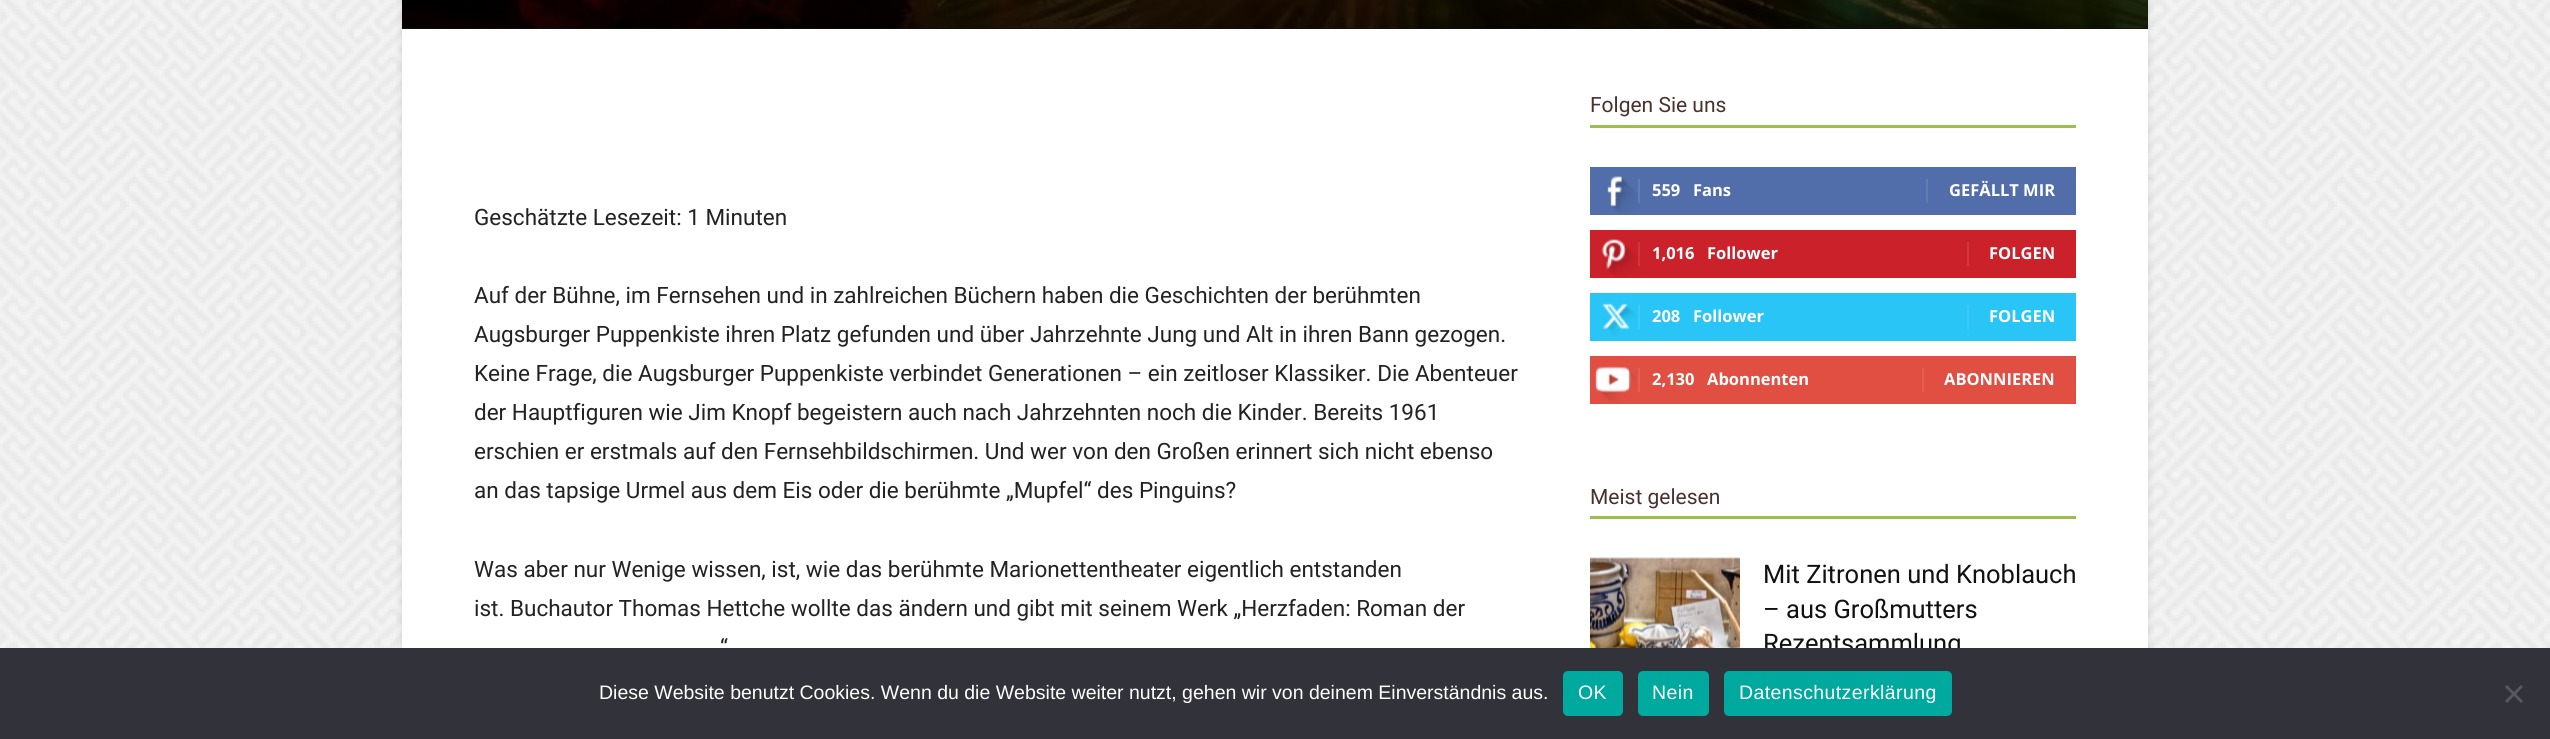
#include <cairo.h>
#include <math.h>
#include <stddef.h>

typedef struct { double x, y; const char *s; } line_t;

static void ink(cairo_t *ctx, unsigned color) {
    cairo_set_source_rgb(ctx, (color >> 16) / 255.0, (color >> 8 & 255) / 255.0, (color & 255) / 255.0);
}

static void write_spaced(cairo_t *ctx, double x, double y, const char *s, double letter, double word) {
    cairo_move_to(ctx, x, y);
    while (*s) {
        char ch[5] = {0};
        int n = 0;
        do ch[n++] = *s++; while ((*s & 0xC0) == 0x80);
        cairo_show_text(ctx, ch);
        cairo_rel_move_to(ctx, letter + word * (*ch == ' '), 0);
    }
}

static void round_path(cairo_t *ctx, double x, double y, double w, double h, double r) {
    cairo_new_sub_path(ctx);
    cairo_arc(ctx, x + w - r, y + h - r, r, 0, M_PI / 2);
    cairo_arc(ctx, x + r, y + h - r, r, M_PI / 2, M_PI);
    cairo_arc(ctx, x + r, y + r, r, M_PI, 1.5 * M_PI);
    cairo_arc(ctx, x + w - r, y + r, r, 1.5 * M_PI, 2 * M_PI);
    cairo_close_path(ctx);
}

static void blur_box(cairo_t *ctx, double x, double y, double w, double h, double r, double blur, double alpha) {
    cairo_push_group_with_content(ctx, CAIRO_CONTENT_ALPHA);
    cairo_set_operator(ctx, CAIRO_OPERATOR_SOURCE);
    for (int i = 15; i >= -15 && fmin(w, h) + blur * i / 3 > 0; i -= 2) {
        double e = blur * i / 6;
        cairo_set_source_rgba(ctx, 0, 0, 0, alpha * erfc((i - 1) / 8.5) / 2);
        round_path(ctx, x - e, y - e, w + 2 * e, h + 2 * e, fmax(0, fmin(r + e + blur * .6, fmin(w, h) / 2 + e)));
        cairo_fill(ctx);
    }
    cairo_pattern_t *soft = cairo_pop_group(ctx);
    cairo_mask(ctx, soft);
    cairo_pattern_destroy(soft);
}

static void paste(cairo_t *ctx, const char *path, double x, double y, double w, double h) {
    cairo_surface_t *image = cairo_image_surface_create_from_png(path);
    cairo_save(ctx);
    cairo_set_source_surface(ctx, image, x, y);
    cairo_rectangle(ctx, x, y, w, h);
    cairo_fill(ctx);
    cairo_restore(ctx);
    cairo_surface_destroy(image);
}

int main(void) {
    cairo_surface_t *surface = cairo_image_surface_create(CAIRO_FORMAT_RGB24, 2550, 739);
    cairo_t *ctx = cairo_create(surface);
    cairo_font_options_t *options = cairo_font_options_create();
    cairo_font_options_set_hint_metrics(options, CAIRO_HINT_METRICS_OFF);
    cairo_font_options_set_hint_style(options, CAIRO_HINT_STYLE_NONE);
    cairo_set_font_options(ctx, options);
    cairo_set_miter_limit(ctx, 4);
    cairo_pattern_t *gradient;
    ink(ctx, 0xFFFFFF);
    cairo_paint(ctx);
    paste(ctx, "media/1.png", 0, 0, 2550, 648);
    ink(ctx, 0x000000);
    blur_box(ctx, 402, -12, 1746, 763, 0, 4, 0.12);
    ink(ctx, 0xFFFFFF);
    cairo_rectangle(ctx, 402, 29, 1746, 619);
    cairo_fill(ctx);
    ink(ctx, 0x444444);
    cairo_rectangle(ctx, 402, 28, 1746, 1);
    cairo_fill(ctx);
    paste(ctx, "media/2.png", 402, 0, 1746, 29);
    gradient = cairo_pattern_create_linear(1275, -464, 1275, 29);
    cairo_pattern_add_color_stop_rgba(gradient, 0, 0, 0, 0, 0);
    cairo_pattern_add_color_stop_rgba(gradient, 1, 0, 0, 0, 0.8);
    cairo_set_source(ctx, gradient);
    cairo_pattern_destroy(gradient);
    cairo_rectangle(ctx, 402, 0, 1746, 29);
    cairo_fill(ctx);
    cairo_select_font_face(ctx, "Roboto", CAIRO_FONT_SLANT_NORMAL, CAIRO_FONT_WEIGHT_NORMAL);
    cairo_set_font_size(ctx, 22.5);
    ink(ctx, 0x222222);
    {
        static const line_t items[] = {
            {474, 225, "Geschätzte Lesezeit: 1 Minuten"},
            {474, 303, "Auf der Bühne, im Fernsehen und in zahlreichen Büchern haben die Geschichten der berühmten"},
            {474, 342, "Augsburger Puppenkiste ihren Platz gefunden und über Jahrzehnte Jung und Alt in ihren Bann gezogen."},
            {474, 381, "Keine Frage, die Augsburger Puppenkiste verbindet Generationen – ein zeitloser Klassiker. Die Abenteuer"},
            {474, 420, "der Hauptfiguren wie Jim Knopf begeistern auch nach Jahrzehnten noch die Kinder. Bereits 1961"},
            {474, 459, "erschien er erstmals auf den Fernsehbildschirmen. Und wer von den Großen erinnert sich nicht ebenso"},
            {474, 498, "an das tapsige Urmel aus dem Eis oder die berühmte „Mupfel“ des Pinguins?"},
            {474, 577, "Was aber nur Wenige wissen, ist, wie das berühmte Marionettentheater eigentlich entstanden"},
            {474, 616, "ist. Buchautor Thomas Hettche wollte das ändern und gibt mit seinem Werk „Herzfaden: Roman der"},
            {720, 655, "“"},
        };
        for (size_t i = 0; i < sizeof items / sizeof *items; i++) {
            cairo_move_to(ctx, items[i].x, items[i].y);
            cairo_show_text(ctx, items[i].s);
        }
    }
    ink(ctx, 0x9CBF47);
    cairo_rectangle(ctx, 1590, 125, 486, 3);
    cairo_fill(ctx);
    cairo_set_font_size(ctx, 21);
    ink(ctx, 0x49312D);
    cairo_move_to(ctx, 1590, 112);
    cairo_show_text(ctx, "Folgen Sie uns");
    ink(ctx, 0x516EAB);
    cairo_rectangle(ctx, 1590, 167, 486, 48);
    cairo_fill(ctx);
    paste(ctx, "media/3.png", 1607, 176, 31, 38);
    ink(ctx, 0x627DB3);
    cairo_rectangle(ctx, 1638, 179, 2, 24);
    cairo_fill(ctx);
    cairo_select_font_face(ctx, "Open Sans", CAIRO_FONT_SLANT_NORMAL, CAIRO_FONT_WEIGHT_BOLD);
    cairo_set_font_size(ctx, 16.5);
    ink(ctx, 0xFFFFFF);
    cairo_move_to(ctx, 1652, 196);
    cairo_show_text(ctx, "559");
    cairo_move_to(ctx, 1693, 196);
    cairo_show_text(ctx, "Fans");
    ink(ctx, 0x627DB3);
    cairo_rectangle(ctx, 1926, 179, 2, 24);
    cairo_fill(ctx);
    ink(ctx, 0xFFFFFF);
    cairo_move_to(ctx, 1949, 196);
    cairo_show_text(ctx, "GEFÄLLT MIR");
    ink(ctx, 0xCA212A);
    cairo_rectangle(ctx, 1590, 230, 486, 48);
    cairo_fill(ctx);
    paste(ctx, "media/4.png", 1601, 239, 37, 38);
    ink(ctx, 0xCF373F);
    cairo_rectangle(ctx, 1638, 242, 2, 24);
    cairo_fill(ctx);
    ink(ctx, 0xFFFFFF);
    cairo_move_to(ctx, 1652, 259);
    cairo_show_text(ctx, "1,016");
    cairo_move_to(ctx, 1707, 259);
    cairo_show_text(ctx, "Follower");
    ink(ctx, 0xCF373F);
    cairo_rectangle(ctx, 1967, 242, 2, 24);
    cairo_fill(ctx);
    ink(ctx, 0xFFFFFF);
    cairo_move_to(ctx, 1989, 259);
    cairo_show_text(ctx, "FOLGEN");
    ink(ctx, 0x29C5F6);
    cairo_rectangle(ctx, 1590, 293, 486, 48);
    cairo_fill(ctx);
    paste(ctx, "media/5.png", 1602, 303, 34, 32);
    ink(ctx, 0x3ECBF7);
    cairo_rectangle(ctx, 1638, 305, 2, 24);
    cairo_fill(ctx);
    ink(ctx, 0xFFFFFF);
    cairo_move_to(ctx, 1652, 322);
    cairo_show_text(ctx, "208");
    cairo_move_to(ctx, 1693, 322);
    cairo_show_text(ctx, "Follower");
    ink(ctx, 0x3ECBF7);
    cairo_rectangle(ctx, 1967, 305, 2, 24);
    cairo_fill(ctx);
    ink(ctx, 0xFFFFFF);
    cairo_move_to(ctx, 1989, 322);
    cairo_show_text(ctx, "FOLGEN");
    ink(ctx, 0xE14E42);
    cairo_rectangle(ctx, 1590, 356, 486, 48);
    cairo_fill(ctx);
    paste(ctx, "media/6.png", 1595, 366, 41, 37);
    ink(ctx, 0xE46055);
    cairo_rectangle(ctx, 1638, 368, 2, 24);
    cairo_fill(ctx);
    ink(ctx, 0xFFFFFF);
    cairo_move_to(ctx, 1652, 385);
    cairo_show_text(ctx, "2,130");
    cairo_move_to(ctx, 1707, 385);
    cairo_show_text(ctx, "Abonnenten");
    ink(ctx, 0xE46055);
    cairo_rectangle(ctx, 1922, 368, 2, 24);
    cairo_fill(ctx);
    ink(ctx, 0xFFFFFF);
    cairo_move_to(ctx, 1944, 385);
    cairo_show_text(ctx, "ABONNIEREN");
    ink(ctx, 0x9CBF47);
    cairo_rectangle(ctx, 1590, 516, 486, 3);
    cairo_fill(ctx);
    cairo_select_font_face(ctx, "Roboto", CAIRO_FONT_SLANT_NORMAL, CAIRO_FONT_WEIGHT_NORMAL);
    cairo_set_font_size(ctx, 21);
    ink(ctx, 0x49312D);
    cairo_move_to(ctx, 1590, 504);
    cairo_show_text(ctx, "Meist gelesen");
    paste(ctx, "media/7.png", 1590, 557, 150, 91);
    cairo_set_font_size(ctx, 25.5);
    ink(ctx, 0x111111);
    {
        static const line_t items[] = {
            {1763, 583, "Mit Zitronen und Knoblauch"},
            {1763, 618, "– aus Großmutters"},
            {1763, 652, "Rezeptsammlung"},
        };
        for (size_t i = 0; i < sizeof items / sizeof *items; i++) {
            cairo_move_to(ctx, items[i].x, items[i].y);
            cairo_show_text(ctx, items[i].s);
        }
    }
    ink(ctx, 0x32323A);
    cairo_rectangle(ctx, 0, 648, 2550, 91);
    cairo_fill(ctx);
    cairo_select_font_face(ctx, "Liberation Sans", CAIRO_FONT_SLANT_NORMAL, CAIRO_FONT_WEIGHT_NORMAL);
    cairo_set_font_size(ctx, 19.5);
    ink(ctx, 0xFFFFFF);
    cairo_move_to(ctx, 599, 699);
    cairo_show_text(ctx, "Diese Website benutzt Cookies. Wenn du die Website weiter nutzt, gehen wir von deinem Einverständnis aus.");
    ink(ctx, 0x00A99D);
    round_path(ctx, 1563, 671, 60, 45, 5);
    cairo_fill(ctx);
    ink(ctx, 0xFFFFFF);
    write_spaced(ctx, 1578, 699, "OK", 0.4, 0);
    ink(ctx, 0x00A99D);
    round_path(ctx, 1638, 671, 71, 45, 5);
    cairo_fill(ctx);
    ink(ctx, 0xFFFFFF);
    write_spaced(ctx, 1652, 699, "Nein", 0.4, 0);
    ink(ctx, 0x00A99D);
    round_path(ctx, 1724, 671, 228, 45, 5);
    cairo_fill(ctx);
    ink(ctx, 0xFFFFFF);
    write_spaced(ctx, 1739, 699, "Datenschutzerklärung", 0.4, 0);
    ink(ctx, 0x59595D);
    cairo_new_path(ctx);
    cairo_move_to(ctx, 2521, 685);
    cairo_line_to(ctx, 2523, 687);
    cairo_line_to(ctx, 2507, 703);
    cairo_line_to(ctx, 2505, 701);
    cairo_close_path(ctx);
    cairo_fill(ctx);
    cairo_new_path(ctx);
    cairo_move_to(ctx, 2505, 687);
    cairo_line_to(ctx, 2507, 685);
    cairo_line_to(ctx, 2523, 701);
    cairo_line_to(ctx, 2521, 703);
    cairo_close_path(ctx);
    cairo_fill(ctx);
    cairo_surface_write_to_png(surface, "image.png");
    cairo_font_options_destroy(options);
    cairo_destroy(ctx);
    cairo_surface_destroy(surface);
    return 0;
}
